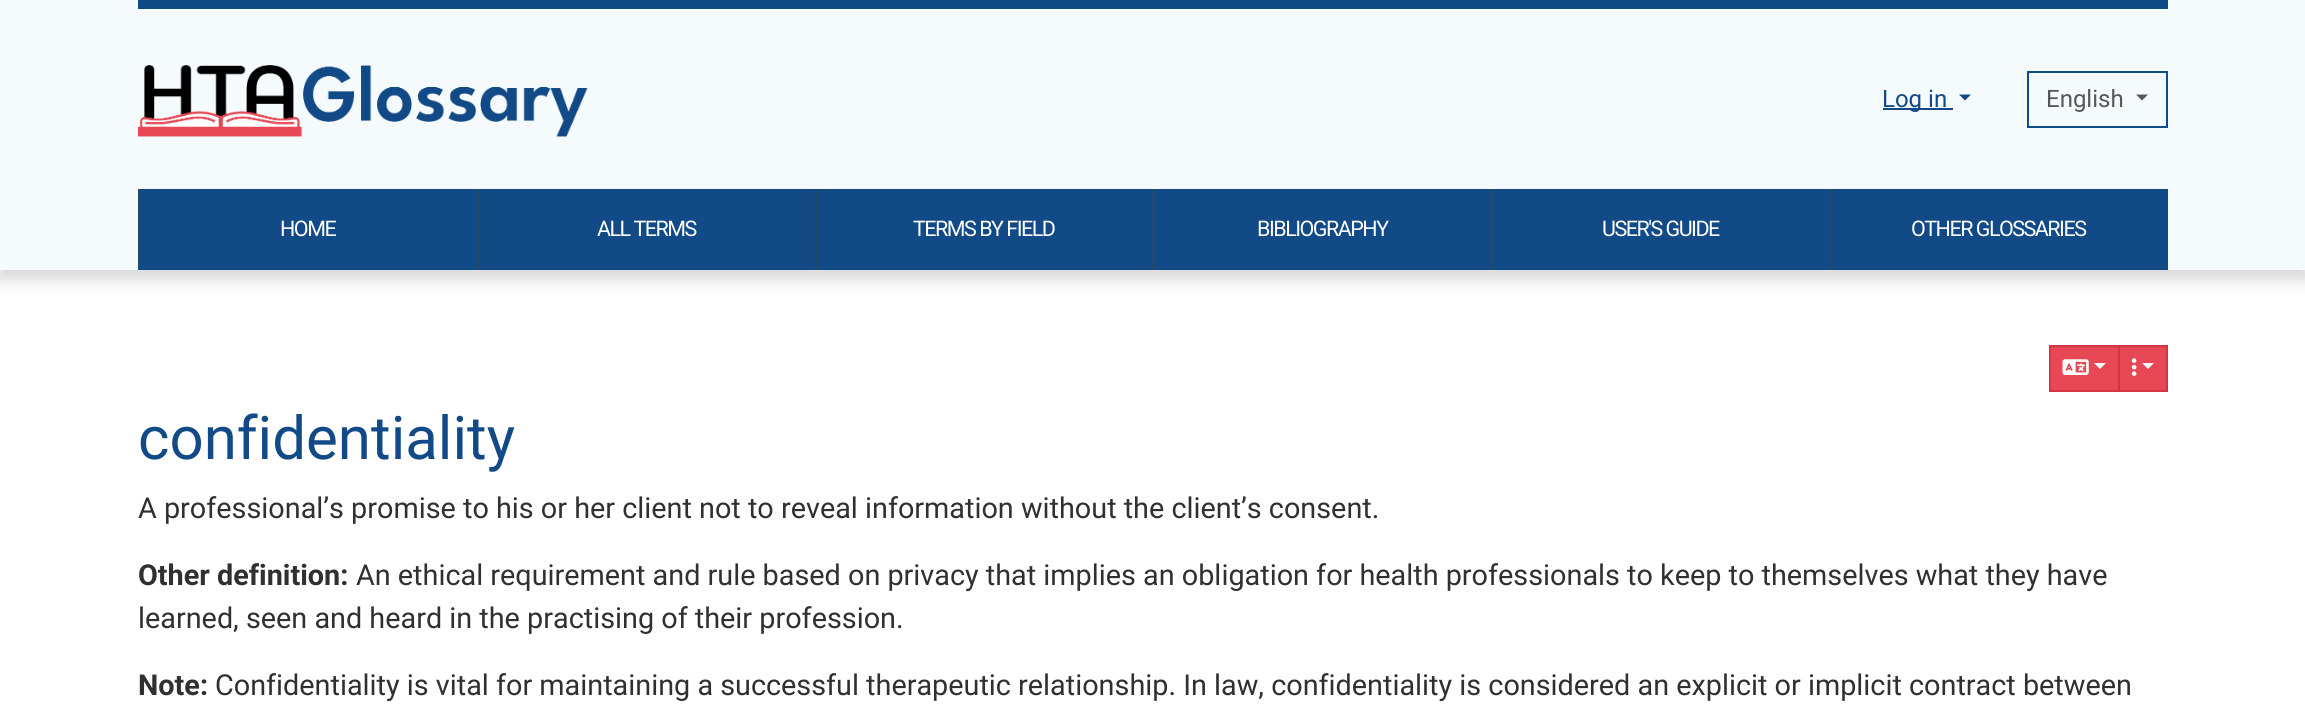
#include <cairo.h>
#include <math.h>
#include <stddef.h>


static void ink(cairo_t *ctx, unsigned color) {
    cairo_set_source_rgb(ctx, (color >> 16) / 255.0, (color >> 8 & 255) / 255.0, (color & 255) / 255.0);
}

static void write_spaced(cairo_t *ctx, double x, double y, const char *s, double letter, double word) {
    cairo_move_to(ctx, x, y);
    while (*s) {
        char ch[5] = {0};
        int n = 0;
        do ch[n++] = *s++; while ((*s & 0xC0) == 0x80);
        cairo_show_text(ctx, ch);
        cairo_rel_move_to(ctx, letter + word * (*ch == ' '), 0);
    }
}

static void round_path(cairo_t *ctx, double x, double y, double w, double h, double r) {
    cairo_new_sub_path(ctx);
    cairo_arc(ctx, x + w - r, y + h - r, r, 0, M_PI / 2);
    cairo_arc(ctx, x + r, y + h - r, r, M_PI / 2, M_PI);
    cairo_arc(ctx, x + r, y + r, r, M_PI, 1.5 * M_PI);
    cairo_arc(ctx, x + w - r, y + r, r, 1.5 * M_PI, 2 * M_PI);
    cairo_close_path(ctx);
}

static void blur_box(cairo_t *ctx, double x, double y, double w, double h, double r, double blur, double alpha) {
    cairo_push_group_with_content(ctx, CAIRO_CONTENT_ALPHA);
    cairo_set_operator(ctx, CAIRO_OPERATOR_SOURCE);
    for (int i = 15; i >= -15 && fmin(w, h) + blur * i / 3 > 0; i -= 2) {
        double e = blur * i / 6;
        cairo_set_source_rgba(ctx, 0, 0, 0, alpha * erfc((i - 1) / 8.5) / 2);
        round_path(ctx, x - e, y - e, w + 2 * e, h + 2 * e, fmax(0, fmin(r + e + blur * .6, fmin(w, h) / 2 + e)));
        cairo_fill(ctx);
    }
    cairo_pattern_t *soft = cairo_pop_group(ctx);
    cairo_mask(ctx, soft);
    cairo_pattern_destroy(soft);
}

static void paste(cairo_t *ctx, const char *path, double x, double y, double w, double h) {
    cairo_surface_t *image = cairo_image_surface_create_from_png(path);
    cairo_save(ctx);
    cairo_set_source_surface(ctx, image, x, y);
    cairo_rectangle(ctx, x, y, w, h);
    cairo_fill(ctx);
    cairo_restore(ctx);
    cairo_surface_destroy(image);
}

int main(void) {
    cairo_surface_t *surface = cairo_image_surface_create(CAIRO_FORMAT_RGB24, 2305, 709);
    cairo_t *ctx = cairo_create(surface);
    cairo_font_options_t *options = cairo_font_options_create();
    cairo_font_options_set_hint_metrics(options, CAIRO_HINT_METRICS_OFF);
    cairo_font_options_set_hint_style(options, CAIRO_HINT_STYLE_NONE);
    cairo_set_font_options(ctx, options);
    cairo_set_miter_limit(ctx, 4);
    ink(ctx, 0xFFFFFF);
    cairo_paint(ctx);
    ink(ctx, 0x444444);
    blur_box(ctx, -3, 5, 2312, 276, 0, 7.5, 0.2);
    ink(ctx, 0xF5FAFC);
    cairo_rectangle(ctx, 0, 0, 2305, 270);
    cairo_fill(ctx);
    ink(ctx, 0x124987);
    cairo_rectangle(ctx, 138, 0, 2030, 9);
    cairo_fill(ctx);
    paste(ctx, "media/1.png", 138, 65, 450, 72);
    cairo_rectangle(ctx, 1883, 108, 70, 2);
    cairo_fill(ctx);
    cairo_select_font_face(ctx, "Roboto", CAIRO_FONT_SLANT_NORMAL, CAIRO_FONT_WEIGHT_NORMAL);
    cairo_set_font_size(ctx, 24);
    cairo_move_to(ctx, 1882, 107);
    cairo_show_text(ctx, "Log in");
    cairo_new_path(ctx);
    cairo_move_to(ctx, 1959, 94.5);
    cairo_line_to(ctx, 1971, 94.5);
    cairo_line_to(ctx, 1965, 100.5);
    cairo_close_path(ctx);
    cairo_fill(ctx);
    cairo_rectangle(ctx, 2028, 72, 139, 55);
    cairo_stroke(ctx);
    ink(ctx, 0x565858);
    cairo_move_to(ctx, 2046, 107);
    cairo_show_text(ctx, "English");
    cairo_new_path(ctx);
    cairo_move_to(ctx, 2136, 94.5);
    cairo_line_to(ctx, 2148, 94.5);
    cairo_line_to(ctx, 2142, 100.5);
    cairo_close_path(ctx);
    cairo_fill(ctx);
    ink(ctx, 0x124987);
    cairo_rectangle(ctx, 140, 189, 2028, 81);
    cairo_fill(ctx);
    ink(ctx, 0x244B66);
    cairo_rectangle(ctx, 138, 189, 2, 81);
    cairo_fill(ctx);
    cairo_set_font_size(ctx, 21.5);
    ink(ctx, 0xFFFFFF);
    write_spaced(ctx, 280, 236, "HOME", -1.5, 0);
    ink(ctx, 0x244B66);
    cairo_rectangle(ctx, 477, 189, 2, 81);
    cairo_fill(ctx);
    ink(ctx, 0xFFFFFF);
    write_spaced(ctx, 597, 236, "ALL TERMS", -1.5, 0);
    ink(ctx, 0x244B66);
    cairo_rectangle(ctx, 815, 189, 2, 81);
    cairo_fill(ctx);
    ink(ctx, 0xFFFFFF);
    write_spaced(ctx, 913, 236, "TERMS BY FIELD", -1.5, 0);
    ink(ctx, 0x244B66);
    cairo_rectangle(ctx, 1152, 189, 2, 81);
    cairo_fill(ctx);
    ink(ctx, 0xFFFFFF);
    write_spaced(ctx, 1257, 236, "BIBLIOGRAPHY", -1.5, 0);
    ink(ctx, 0x244B66);
    cairo_rectangle(ctx, 1491, 189, 2, 81);
    cairo_fill(ctx);
    ink(ctx, 0xFFFFFF);
    write_spaced(ctx, 1602, 236, "USER'S GUIDE", -1.5, 0);
    ink(ctx, 0x244B66);
    cairo_rectangle(ctx, 1829, 189, 2, 81);
    cairo_fill(ctx);
    ink(ctx, 0xFFFFFF);
    write_spaced(ctx, 1911, 236, "OTHER GLOSSARIES", -1.5, 0);
    ink(ctx, 0xE84855);
    cairo_rectangle(ctx, 2050, 346, 69, 45);
    cairo_fill_preserve(ctx);
    ink(ctx, 0xD33643);
    cairo_stroke(ctx);
    paste(ctx, "media/2.png", 2062, 359, 27, 16);
    ink(ctx, 0xFFFFFF);
    cairo_new_path(ctx);
    cairo_move_to(ctx, 2094, 363);
    cairo_line_to(ctx, 2106, 363);
    cairo_line_to(ctx, 2100, 369);
    cairo_close_path(ctx);
    cairo_fill(ctx);
    ink(ctx, 0xE84855);
    cairo_rectangle(ctx, 2119, 346, 48, 45);
    cairo_fill_preserve(ctx);
    ink(ctx, 0xD33643);
    cairo_stroke(ctx);
    paste(ctx, "media/3.png", 2131, 358, 6, 18);
    ink(ctx, 0xFFFFFF);
    cairo_new_path(ctx);
    cairo_move_to(ctx, 2142, 363);
    cairo_line_to(ctx, 2154, 363);
    cairo_line_to(ctx, 2148, 369);
    cairo_close_path(ctx);
    cairo_fill(ctx);
    cairo_set_font_size(ctx, 60);
    ink(ctx, 0x124987);
    cairo_move_to(ctx, 138, 459);
    cairo_show_text(ctx, "confidentiality");
    cairo_set_font_size(ctx, 28.8);
    ink(ctx, 0x303030);
    cairo_move_to(ctx, 138, 518);
    cairo_show_text(ctx, "A professional’s promise to his or her client not to reveal information without the client’s consent.");
    cairo_select_font_face(ctx, "Roboto", CAIRO_FONT_SLANT_NORMAL, CAIRO_FONT_WEIGHT_BOLD);
    cairo_move_to(ctx, 138, 585);
    cairo_show_text(ctx, "Other definition:");
    cairo_select_font_face(ctx, "Roboto", CAIRO_FONT_SLANT_NORMAL, CAIRO_FONT_WEIGHT_NORMAL);
    cairo_move_to(ctx, 356, 585);
    cairo_show_text(ctx, "An ethical requirement and rule based on privacy that implies an obligation for health professionals to keep to themselves what they have");
    cairo_move_to(ctx, 138, 628);
    cairo_show_text(ctx, "learned, seen and heard in the practising of their profession.");
    cairo_select_font_face(ctx, "Roboto", CAIRO_FONT_SLANT_NORMAL, CAIRO_FONT_WEIGHT_BOLD);
    cairo_move_to(ctx, 138, 695);
    cairo_show_text(ctx, "Note:");
    cairo_select_font_face(ctx, "Roboto", CAIRO_FONT_SLANT_NORMAL, CAIRO_FONT_WEIGHT_NORMAL);
    cairo_move_to(ctx, 215, 695);
    cairo_show_text(ctx, "Confidentiality is vital for maintaining a successful therapeutic relationship. In law, confidentiality is considered an explicit or implicit contract between");
    cairo_surface_write_to_png(surface, "image.png");
    cairo_font_options_destroy(options);
    cairo_destroy(ctx);
    cairo_surface_destroy(surface);
    return 0;
}
